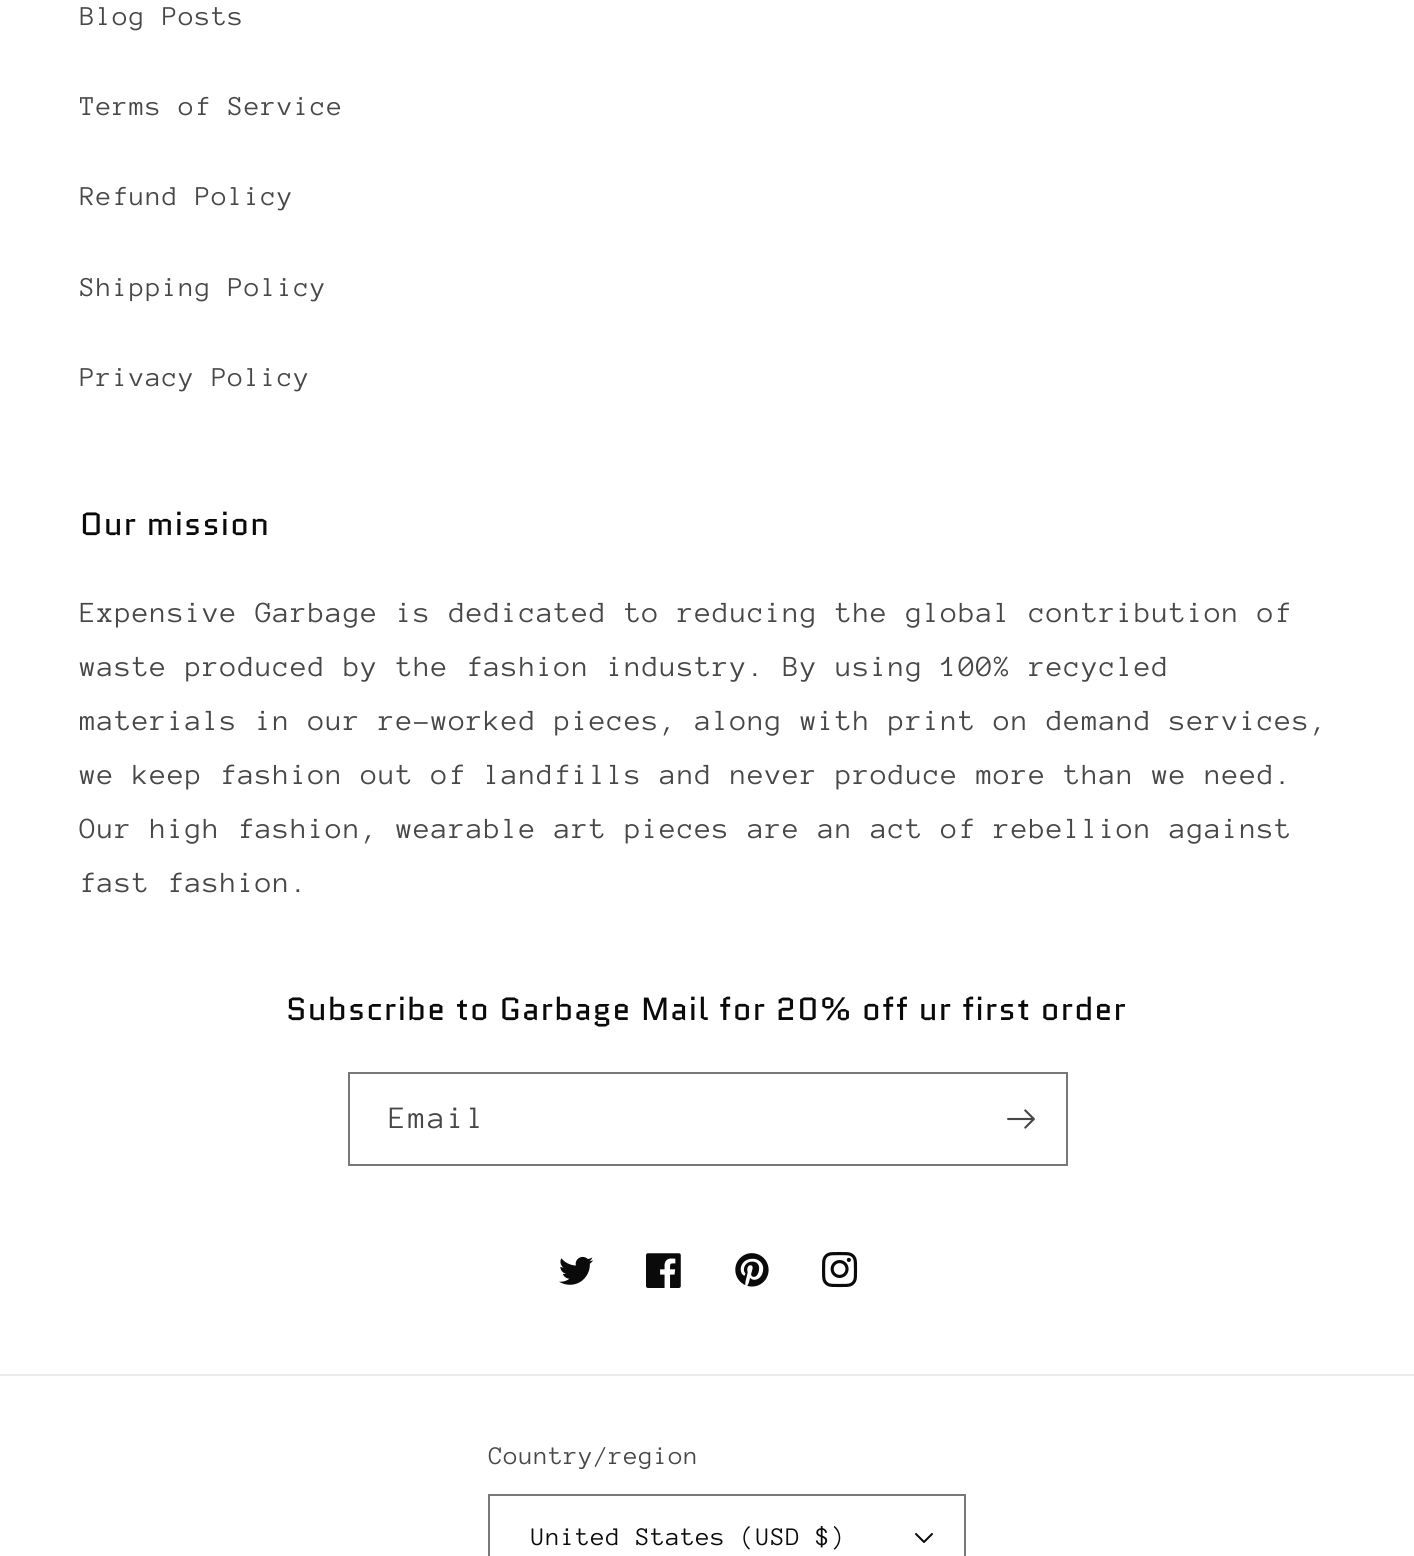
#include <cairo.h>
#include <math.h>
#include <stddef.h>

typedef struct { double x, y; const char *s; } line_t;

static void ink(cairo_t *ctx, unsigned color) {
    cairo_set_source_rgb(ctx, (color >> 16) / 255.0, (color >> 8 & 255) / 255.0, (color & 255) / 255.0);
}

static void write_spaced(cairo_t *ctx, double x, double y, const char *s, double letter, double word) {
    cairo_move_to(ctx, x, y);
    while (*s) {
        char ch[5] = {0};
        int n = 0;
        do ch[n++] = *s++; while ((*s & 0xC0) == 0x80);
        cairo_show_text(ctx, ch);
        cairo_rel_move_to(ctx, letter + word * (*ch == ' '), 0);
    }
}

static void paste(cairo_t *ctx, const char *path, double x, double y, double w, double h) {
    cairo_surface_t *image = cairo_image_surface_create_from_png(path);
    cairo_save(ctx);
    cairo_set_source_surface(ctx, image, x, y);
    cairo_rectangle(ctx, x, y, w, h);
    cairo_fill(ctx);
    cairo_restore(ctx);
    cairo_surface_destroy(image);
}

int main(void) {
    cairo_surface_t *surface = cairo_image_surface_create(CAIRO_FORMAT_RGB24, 1414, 1556);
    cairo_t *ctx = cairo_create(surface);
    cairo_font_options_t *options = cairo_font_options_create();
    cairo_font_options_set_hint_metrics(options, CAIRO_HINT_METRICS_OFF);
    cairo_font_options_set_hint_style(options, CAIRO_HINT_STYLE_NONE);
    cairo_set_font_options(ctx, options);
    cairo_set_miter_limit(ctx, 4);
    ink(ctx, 0xFFFFFF);
    cairo_paint(ctx);
    cairo_select_font_face(ctx, "Anonymous Pro", CAIRO_FONT_SLANT_NORMAL, CAIRO_FONT_WEIGHT_NORMAL);
    cairo_set_font_size(ctx, 28);
    ink(ctx, 0x474747);
    {
        static const line_t items[] = {
            {80, 25, "Blog Posts"},
            {80, 115, "Terms of Service"},
            {80, 205, "Refund Policy"},
            {80, 296, "Shipping Policy"},
            {80, 386, "Privacy Policy"},
        };
        for (size_t i = 0; i < sizeof items / sizeof *items; i++) {
            write_spaced(ctx, items[i].x, items[i].y, items[i].s, 1.2, 0);
        }
    }
    cairo_select_font_face(ctx, "Quantico", CAIRO_FONT_SLANT_NORMAL, CAIRO_FONT_WEIGHT_NORMAL);
    cairo_set_font_size(ctx, 32);
    ink(ctx, 0x0A0A0A);
    write_spaced(ctx, 80, 535, "Our mission", 1.2, 0);
    cairo_select_font_face(ctx, "Anonymous Pro", CAIRO_FONT_SLANT_NORMAL, CAIRO_FONT_WEIGHT_NORMAL);
    cairo_set_font_size(ctx, 30);
    ink(ctx, 0x474747);
    {
        static const line_t items[] = {
            {80, 622, "Expensive Garbage is dedicated to reducing the global contribution of"},
            {80, 676, "waste produced by the fashion industry. By using 100% recycled"},
            {80, 730, "materials in our re-worked pieces, along with print on demand services,"},
            {80, 784, "we keep fashion out of landfills and never produce more than we need."},
            {80, 838, "Our high fashion, wearable art pieces are an act of rebellion against"},
            {80, 892, "fast fashion."},
        };
        for (size_t i = 0; i < sizeof items / sizeof *items; i++) {
            write_spaced(ctx, items[i].x, items[i].y, items[i].s, 1.2, 0);
        }
    }
    cairo_select_font_face(ctx, "Quantico", CAIRO_FONT_SLANT_NORMAL, CAIRO_FONT_WEIGHT_NORMAL);
    cairo_set_font_size(ctx, 32);
    ink(ctx, 0x0A0A0A);
    write_spaced(ctx, 286, 1020, "Subscribe to Garbage Mail for 20% off ur first order", 1.2, 0);
    cairo_rectangle(ctx, 349, 1073, 718, 92);
    ink(ctx, 0x787878);
    cairo_stroke(ctx);
    cairo_select_font_face(ctx, "Anonymous Pro", CAIRO_FONT_SLANT_NORMAL, CAIRO_FONT_WEIGHT_NORMAL);
    ink(ctx, 0x474747);
    write_spaced(ctx, 389, 1128, "Email", 2, 0);
    paste(ctx, "media/1.png", 1007, 1109, 28, 20);
    paste(ctx, "media/2.png", 559, 1256, 35, 29);
    paste(ctx, "media/3.png", 646, 1253, 35, 35);
    paste(ctx, "media/4.png", 735, 1253, 34, 34);
    paste(ctx, "media/5.png", 822, 1252, 36, 36);
    ink(ctx, 0xEBEBEB);
    cairo_rectangle(ctx, 0, 1374, 1414, 2);
    cairo_fill(ctx);
    cairo_set_font_size(ctx, 26);
    ink(ctx, 0x474747);
    write_spaced(ctx, 489, 1464, "Country/region", 0.8, 0);
    paste(ctx, "media/6.png", 915, 1533, 18, 10);
    cairo_rectangle(ctx, 489, 1495, 476, 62);
    ink(ctx, 0x787878);
    cairo_stroke(ctx);
    ink(ctx, 0x0A0A0A);
    write_spaced(ctx, 531, 1545, "United States (USD $)", 0.8, 0);
    cairo_surface_write_to_png(surface, "image.png");
    cairo_font_options_destroy(options);
    cairo_destroy(ctx);
    cairo_surface_destroy(surface);
    return 0;
}
